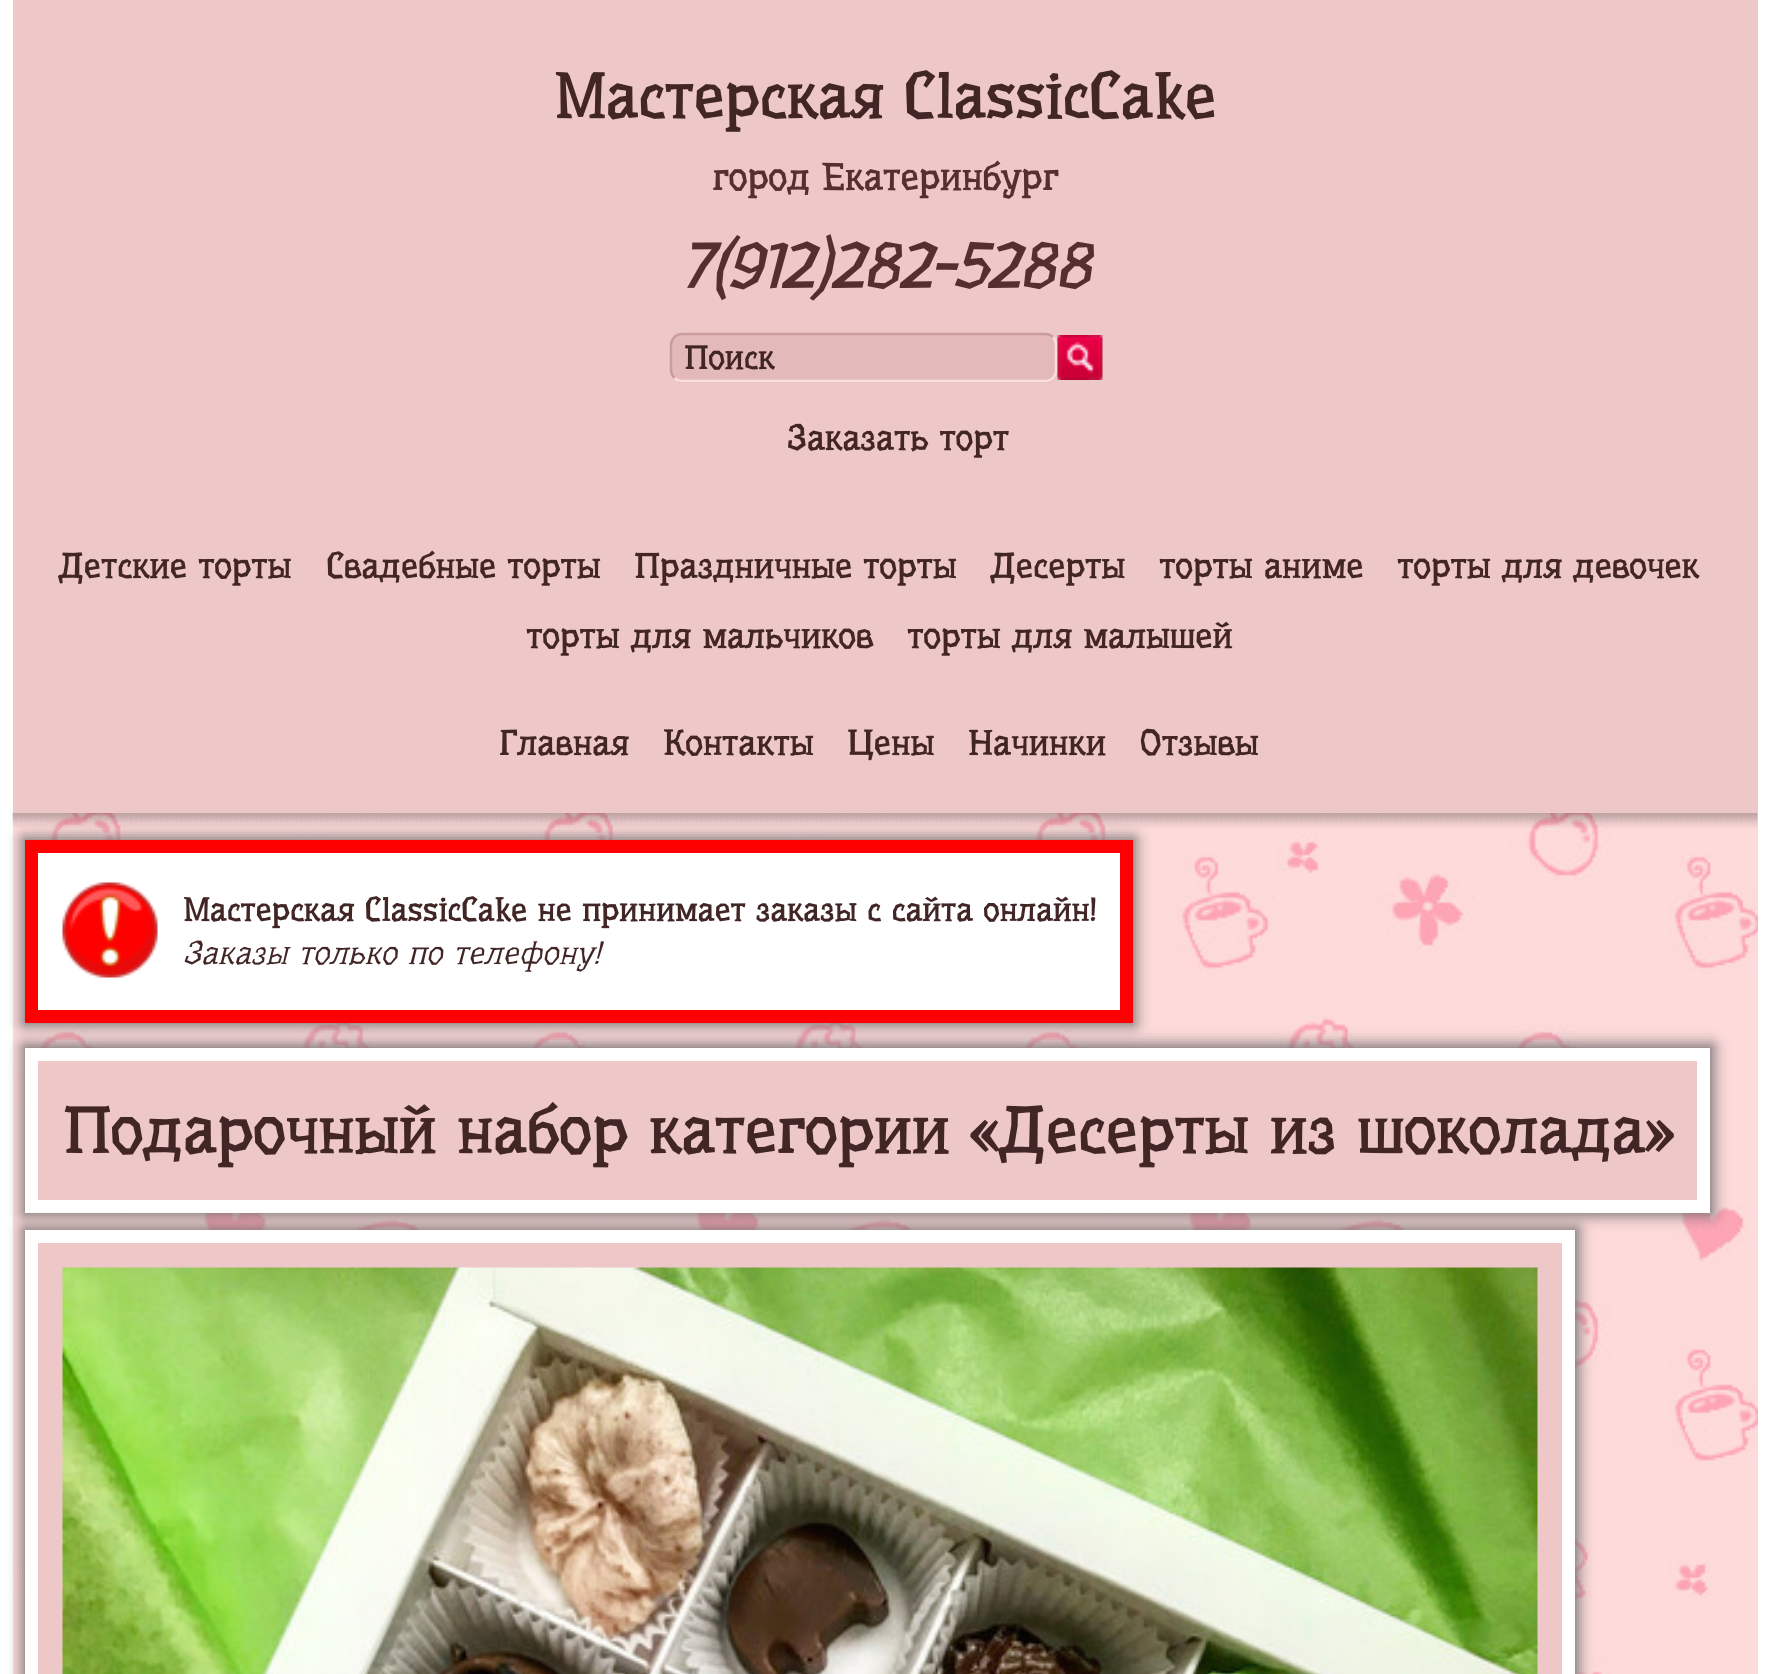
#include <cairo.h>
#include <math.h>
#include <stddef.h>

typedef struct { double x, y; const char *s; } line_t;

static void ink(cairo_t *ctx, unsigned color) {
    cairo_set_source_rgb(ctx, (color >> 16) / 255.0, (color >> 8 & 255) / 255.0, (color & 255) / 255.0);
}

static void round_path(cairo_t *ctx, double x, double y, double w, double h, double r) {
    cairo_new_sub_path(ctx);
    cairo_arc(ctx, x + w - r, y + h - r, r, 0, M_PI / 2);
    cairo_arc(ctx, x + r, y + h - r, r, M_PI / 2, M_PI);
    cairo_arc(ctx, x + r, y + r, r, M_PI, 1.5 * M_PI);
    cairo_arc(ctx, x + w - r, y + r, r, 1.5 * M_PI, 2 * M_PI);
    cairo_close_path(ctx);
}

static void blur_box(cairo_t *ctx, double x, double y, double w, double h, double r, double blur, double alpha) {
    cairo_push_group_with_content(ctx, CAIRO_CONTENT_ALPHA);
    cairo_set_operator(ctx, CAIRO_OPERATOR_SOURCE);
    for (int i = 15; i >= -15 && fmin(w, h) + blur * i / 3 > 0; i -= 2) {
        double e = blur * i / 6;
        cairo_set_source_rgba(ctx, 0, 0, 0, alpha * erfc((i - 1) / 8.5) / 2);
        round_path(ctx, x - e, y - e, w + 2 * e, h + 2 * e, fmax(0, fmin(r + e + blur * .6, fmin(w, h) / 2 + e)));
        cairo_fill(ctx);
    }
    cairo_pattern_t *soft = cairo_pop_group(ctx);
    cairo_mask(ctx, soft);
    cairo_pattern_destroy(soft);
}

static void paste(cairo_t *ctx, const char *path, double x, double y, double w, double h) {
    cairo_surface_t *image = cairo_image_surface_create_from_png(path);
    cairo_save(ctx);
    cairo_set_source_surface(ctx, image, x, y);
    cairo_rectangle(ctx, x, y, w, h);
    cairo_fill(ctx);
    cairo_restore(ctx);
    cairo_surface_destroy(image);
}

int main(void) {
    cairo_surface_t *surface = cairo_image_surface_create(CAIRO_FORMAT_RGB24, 1770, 1674);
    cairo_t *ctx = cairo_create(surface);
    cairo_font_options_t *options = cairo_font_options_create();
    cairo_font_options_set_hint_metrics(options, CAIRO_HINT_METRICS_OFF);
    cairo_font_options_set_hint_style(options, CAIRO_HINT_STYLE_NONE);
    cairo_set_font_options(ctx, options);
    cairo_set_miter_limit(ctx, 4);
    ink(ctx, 0xFFFFFF);
    cairo_paint(ctx);
    paste(ctx, "media/1.png", 13, 813, 1745, 861);
    paste(ctx, "media/3.png", 12, 812, 1746, 16);
    ink(ctx, 0xEEC8C8);
    cairo_rectangle(ctx, 13, 0, 1745, 813);
    cairo_fill(ctx);
    cairo_select_font_face(ctx, "Underdog", CAIRO_FONT_SLANT_NORMAL, CAIRO_FONT_WEIGHT_BOLD);
    cairo_set_font_size(ctx, 62.5);
    ink(ctx, 0x422525);
    cairo_move_to(ctx, 554, 118);
    cairo_show_text(ctx, "Мастерская ClassicCake");
    cairo_set_font_size(ctx, 37.5);
    ink(ctx, 0x552F2F);
    cairo_move_to(ctx, 712, 190);
    cairo_show_text(ctx, "город Екатеринбург");
    cairo_select_font_face(ctx, "Underdog", CAIRO_FONT_SLANT_ITALIC, CAIRO_FONT_WEIGHT_BOLD);
    cairo_set_font_size(ctx, 62.5);
    cairo_move_to(ctx, 680, 288);
    cairo_show_text(ctx, "7(912)282-5288");
    ink(ctx, 0xE3B9B9);
    round_path(ctx, 670, 333, 388, 50, 13);
    cairo_fill(ctx);
    cairo_new_path(ctx);
    cairo_move_to(ctx, 1053, 337);
    cairo_curve_to(ctx, 1055, 339, 1056, 342, 1056, 345);
    cairo_line_to(ctx, 1056, 370);
    cairo_curve_to(ctx, 1056, 373, 1055, 376, 1053, 378);
    cairo_curve_to(ctx, 1051, 380, 1048, 381, 1045, 381);
    cairo_line_to(ctx, 682.5, 381);
    cairo_curve_to(ctx, 679.5, 381, 676.5, 380, 674.5, 378);
    ink(ctx, 0xFCDEDE);
    cairo_set_line_width(ctx, 2.5);
    cairo_stroke(ctx);
    cairo_new_path(ctx);
    cairo_move_to(ctx, 674.5, 378);
    cairo_curve_to(ctx, 672.5, 376, 671, 373, 671, 370);
    cairo_line_to(ctx, 671, 345);
    cairo_curve_to(ctx, 671, 342, 672.5, 339, 674.5, 337);
    cairo_curve_to(ctx, 676.5, 335, 679.5, 334, 682.5, 334);
    cairo_line_to(ctx, 1045, 334);
    cairo_curve_to(ctx, 1048, 334, 1051, 335, 1053, 337);
    ink(ctx, 0xCA9C9C);
    cairo_stroke(ctx);
    cairo_select_font_face(ctx, "Underdog", CAIRO_FONT_SLANT_NORMAL, CAIRO_FONT_WEIGHT_BOLD);
    cairo_set_font_size(ctx, 33);
    ink(ctx, 0x422525);
    cairo_move_to(ctx, 684, 369);
    cairo_show_text(ctx, "Поиск");
    paste(ctx, "media/2.png", 1057, 335, 46, 45);
    cairo_set_font_size(ctx, 35);
    {
        static const line_t items[] = {
            {787, 450, "Заказать торт"},
            {58, 578, "Детские торты"},
            {326, 578, "Свадебные торты"},
            {634, 578, "Праздничные торты"},
            {990, 578, "Десерты"},
            {1159, 578, "торты аниме"},
            {1397, 578, "торты для девочек"},
            {526, 648, "торты для мальчиков"},
            {907, 648, "торты для малышей"},
            {499, 755, "Главная"},
            {663, 755, "Контакты"},
            {847, 755, "Цены"},
            {968, 755, "Начинки"},
            {1139, 755, "Отзывы"},
        };
        for (size_t i = 0; i < sizeof items / sizeof *items; i++) {
            cairo_move_to(ctx, items[i].x, items[i].y);
            cairo_show_text(ctx, items[i].s);
        }
    }
    ink(ctx, 0x6B6B6B);
    blur_box(ctx, 23, 838, 1112, 187, 0, 7.5, 1);
    ink(ctx, 0xFFFFFF);
    cairo_rectangle(ctx, 31.5, 846.5, 1095, 170);
    cairo_fill_preserve(ctx);
    ink(ctx, 0xFF0000);
    cairo_set_line_width(ctx, 13);
    cairo_stroke(ctx);
    paste(ctx, "media/4.png", 62, 882, 96, 96);
    cairo_set_font_size(ctx, 32.5);
    ink(ctx, 0x422525);
    cairo_move_to(ctx, 183, 921);
    cairo_show_text(ctx, "Мастерская ClassicCake не принимает заказы с сайта онлайн!");
    cairo_select_font_face(ctx, "Underdog", CAIRO_FONT_SLANT_ITALIC, CAIRO_FONT_WEIGHT_NORMAL);
    cairo_move_to(ctx, 183, 964);
    cairo_show_text(ctx, "Заказы только по телефону!");
    ink(ctx, 0x6B6B6B);
    blur_box(ctx, 23, 1045, 1690, 170, 0, 7.5, 1);
    ink(ctx, 0xEEC8C8);
    cairo_rectangle(ctx, 31.5, 1054.5, 1672, 152);
    cairo_fill_preserve(ctx);
    ink(ctx, 0xFFFFFF);
    cairo_stroke(ctx);
    cairo_select_font_face(ctx, "Underdog", CAIRO_FONT_SLANT_NORMAL, CAIRO_FONT_WEIGHT_BOLD);
    cairo_set_font_size(ctx, 65);
    ink(ctx, 0x422525);
    cairo_move_to(ctx, 63, 1153);
    cairo_show_text(ctx, "Подарочный набор категории «Десерты из шоколада»");
    ink(ctx, 0x6B6B6B);
    blur_box(ctx, 23, 1228, 1555, 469, 0, 7.5, 1);
    ink(ctx, 0xEEC8C8);
    cairo_rectangle(ctx, 31.5, 1236.5, 1537, 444);
    cairo_fill_preserve(ctx);
    ink(ctx, 0xFFFFFF);
    cairo_stroke(ctx);
    paste(ctx, "media/5.png", 62, 1267, 1476, 407);
    cairo_surface_write_to_png(surface, "image.png");
    cairo_font_options_destroy(options);
    cairo_destroy(ctx);
    cairo_surface_destroy(surface);
    return 0;
}
